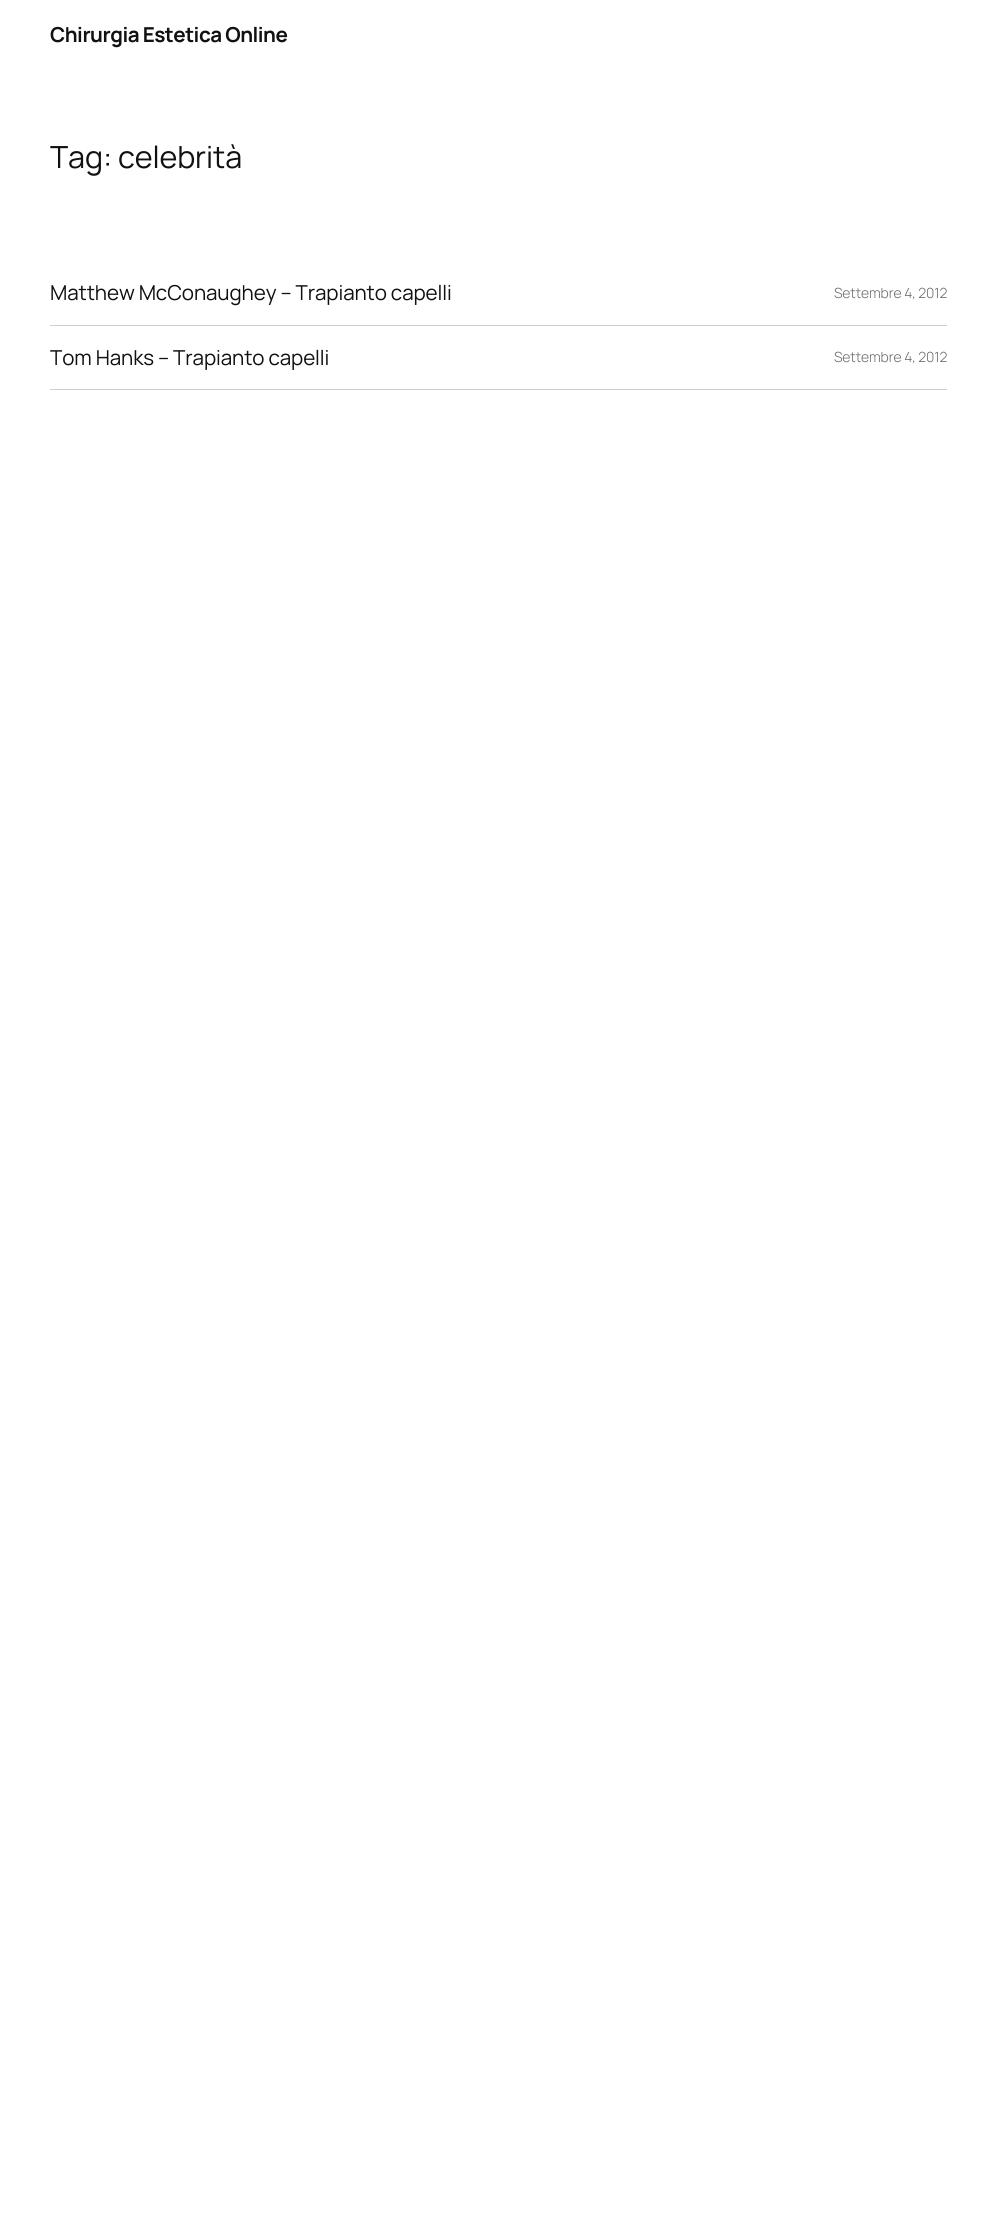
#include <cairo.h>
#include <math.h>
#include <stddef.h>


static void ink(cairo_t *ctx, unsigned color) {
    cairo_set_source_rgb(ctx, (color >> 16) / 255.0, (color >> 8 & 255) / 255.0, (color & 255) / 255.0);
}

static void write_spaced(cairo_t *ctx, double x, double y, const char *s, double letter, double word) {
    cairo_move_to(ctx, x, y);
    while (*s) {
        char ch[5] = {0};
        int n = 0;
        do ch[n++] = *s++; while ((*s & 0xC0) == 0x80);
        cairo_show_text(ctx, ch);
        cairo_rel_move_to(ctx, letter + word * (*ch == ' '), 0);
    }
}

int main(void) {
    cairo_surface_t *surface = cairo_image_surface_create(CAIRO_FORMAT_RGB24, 997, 2231);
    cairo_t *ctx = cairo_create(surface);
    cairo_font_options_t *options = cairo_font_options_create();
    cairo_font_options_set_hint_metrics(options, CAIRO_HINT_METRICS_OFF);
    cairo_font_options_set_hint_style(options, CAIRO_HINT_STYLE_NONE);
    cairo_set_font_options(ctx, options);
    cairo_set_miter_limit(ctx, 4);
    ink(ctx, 0xFFFFFF);
    cairo_paint(ctx);
    cairo_select_font_face(ctx, "Manrope", CAIRO_FONT_SLANT_NORMAL, CAIRO_FONT_WEIGHT_BOLD);
    cairo_set_font_size(ctx, 20.6);
    ink(ctx, 0x111111);
    write_spaced(ctx, 50, 42, "Chirurgia Estetica Online", -0.5, 0);
    cairo_select_font_face(ctx, "Manrope", CAIRO_FONT_SLANT_NORMAL, CAIRO_FONT_WEIGHT_NORMAL);
    cairo_set_font_size(ctx, 30.5);
    write_spaced(ctx, 50, 168, "Tag: celebrità", -0.1, 0);
    ink(ctx, 0xCFCFCF);
    cairo_rectangle(ctx, 50, 325, 897, 1);
    cairo_fill(ctx);
    cairo_set_font_size(ctx, 20.6);
    ink(ctx, 0x111111);
    write_spaced(ctx, 50, 300, "Matthew McConaughey – Trapianto capelli", -0.1, 0);
    cairo_select_font_face(ctx, "Manrope Light", CAIRO_FONT_SLANT_NORMAL, CAIRO_FONT_WEIGHT_NORMAL);
    cairo_set_font_size(ctx, 14);
    ink(ctx, 0x686868);
    write_spaced(ctx, 834, 298, "Settembre 4, 2012", -0.1, 0);
    ink(ctx, 0xCFCFCF);
    cairo_rectangle(ctx, 50, 389, 897, 1);
    cairo_fill(ctx);
    cairo_select_font_face(ctx, "Manrope", CAIRO_FONT_SLANT_NORMAL, CAIRO_FONT_WEIGHT_NORMAL);
    cairo_set_font_size(ctx, 20.6);
    ink(ctx, 0x111111);
    write_spaced(ctx, 50, 365, "Tom Hanks – Trapianto capelli", -0.1, 0);
    cairo_select_font_face(ctx, "Manrope Light", CAIRO_FONT_SLANT_NORMAL, CAIRO_FONT_WEIGHT_NORMAL);
    cairo_set_font_size(ctx, 14);
    ink(ctx, 0x686868);
    write_spaced(ctx, 834, 362, "Settembre 4, 2012", -0.1, 0);
    cairo_surface_write_to_png(surface, "image.png");
    cairo_font_options_destroy(options);
    cairo_destroy(ctx);
    cairo_surface_destroy(surface);
    return 0;
}
